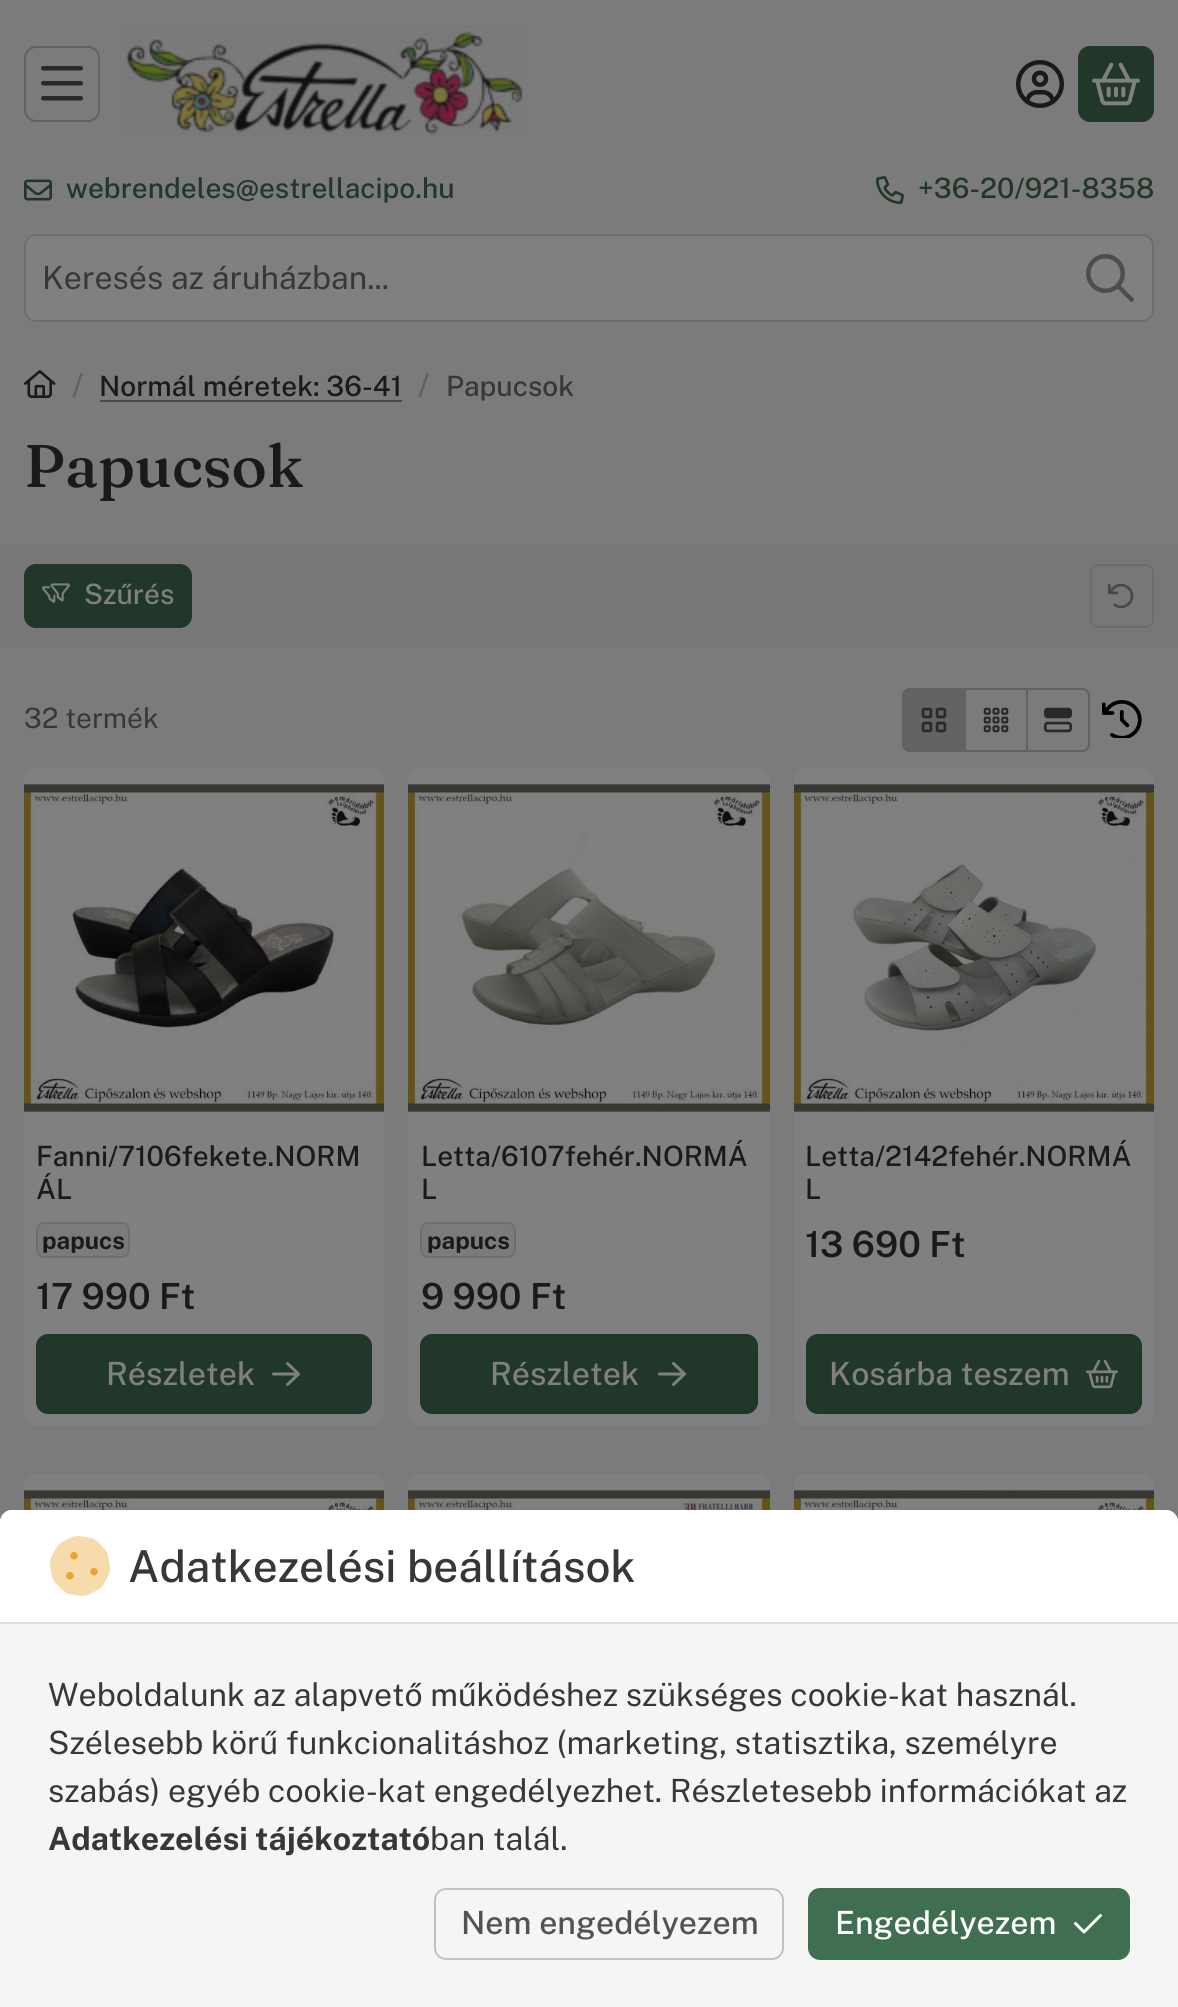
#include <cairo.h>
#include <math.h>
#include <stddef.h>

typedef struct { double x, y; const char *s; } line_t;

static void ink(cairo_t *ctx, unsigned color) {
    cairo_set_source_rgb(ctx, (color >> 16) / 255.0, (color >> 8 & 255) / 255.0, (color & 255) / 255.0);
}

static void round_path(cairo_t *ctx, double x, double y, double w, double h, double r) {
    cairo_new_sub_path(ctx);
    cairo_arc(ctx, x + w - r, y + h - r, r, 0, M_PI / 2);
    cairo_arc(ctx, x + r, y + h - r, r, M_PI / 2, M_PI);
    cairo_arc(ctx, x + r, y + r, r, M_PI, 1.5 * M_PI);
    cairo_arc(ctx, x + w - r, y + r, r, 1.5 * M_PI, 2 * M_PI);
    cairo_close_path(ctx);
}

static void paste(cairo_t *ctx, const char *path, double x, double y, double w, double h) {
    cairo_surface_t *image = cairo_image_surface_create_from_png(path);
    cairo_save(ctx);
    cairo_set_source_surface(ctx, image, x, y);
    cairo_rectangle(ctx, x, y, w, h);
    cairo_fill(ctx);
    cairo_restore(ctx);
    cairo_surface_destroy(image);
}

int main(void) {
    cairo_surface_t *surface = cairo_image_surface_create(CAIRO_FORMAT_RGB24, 1178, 2007);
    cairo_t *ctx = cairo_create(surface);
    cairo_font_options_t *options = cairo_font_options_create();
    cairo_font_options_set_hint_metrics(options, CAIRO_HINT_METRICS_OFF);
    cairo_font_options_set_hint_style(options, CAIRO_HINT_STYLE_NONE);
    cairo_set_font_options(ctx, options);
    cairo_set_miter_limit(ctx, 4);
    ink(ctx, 0x7B7B7B);
    cairo_paint(ctx);
    round_path(ctx, 25, 47, 74, 74, 11);
    ink(ctx, 0x616161);
    cairo_stroke(ctx);
    paste(ctx, "media/1.png", 41, 66, 42, 35);
    paste(ctx, "media/2.png", 124, 24, 400, 112);
    paste(ctx, "media/3.png", 1016, 60, 48, 48);
    ink(ctx, 0x203729);
    round_path(ctx, 1079, 47, 74, 74, 11);
    cairo_fill_preserve(ctx);
    cairo_stroke(ctx);
    paste(ctx, "media/4.png", 1092, 62, 48, 44);
    paste(ctx, "media/5.png", 24, 179, 28, 22);
    cairo_select_font_face(ctx, "Public Sans Medium", CAIRO_FONT_SLANT_NORMAL, CAIRO_FONT_WEIGHT_NORMAL);
    cairo_set_font_size(ctx, 28);
    cairo_move_to(ctx, 66, 198);
    cairo_show_text(ctx, "webrendeles@estrellacipo.hu");
    paste(ctx, "media/6.png", 876, 176, 28, 28);
    cairo_move_to(ctx, 918, 198);
    cairo_show_text(ctx, "+36-20/921-8358");
    ink(ctx, 0x808080);
    round_path(ctx, 25, 235, 1128, 86, 11);
    cairo_fill_preserve(ctx);
    ink(ctx, 0x6E6E6E);
    cairo_stroke(ctx);
    cairo_select_font_face(ctx, "Public Sans", CAIRO_FONT_SLANT_NORMAL, CAIRO_FONT_WEIGHT_NORMAL);
    cairo_set_font_size(ctx, 32);
    ink(ctx, 0x373737);
    cairo_move_to(ctx, 42, 289);
    cairo_show_text(ctx, "Keresés az áruházban...");
    paste(ctx, "media/7.png", 1086, 254, 48, 48);
    paste(ctx, "media/8.png", 24, 370, 32, 28);
    cairo_select_font_face(ctx, "Public Sans Medium", CAIRO_FONT_SLANT_NORMAL, CAIRO_FONT_WEIGHT_NORMAL);
    ink(ctx, 0x616161);
    cairo_move_to(ctx, 72, 396);
    cairo_show_text(ctx, "/");
    cairo_set_font_size(ctx, 28);
    ink(ctx, 0x1A1A1A);
    cairo_move_to(ctx, 99, 396);
    cairo_show_text(ctx, "Normál méretek: 36-41");
    ink(ctx, 0x4A4A4A);
    cairo_rectangle(ctx, 100, 400, 302, 2);
    cairo_fill(ctx);
    cairo_set_font_size(ctx, 32);
    ink(ctx, 0x616161);
    cairo_move_to(ctx, 418, 396);
    cairo_show_text(ctx, "/");
    cairo_set_font_size(ctx, 28);
    ink(ctx, 0x373737);
    cairo_move_to(ctx, 446, 396);
    cairo_show_text(ctx, "Papucsok");
    cairo_select_font_face(ctx, "Fraunces Medium", CAIRO_FONT_SLANT_NORMAL, CAIRO_FONT_WEIGHT_NORMAL);
    cairo_set_font_size(ctx, 60);
    ink(ctx, 0x1A1A1A);
    cairo_move_to(ctx, 24, 487);
    cairo_show_text(ctx, "Papucsok");
    ink(ctx, 0x777777);
    cairo_rectangle(ctx, 0, 544, 1178, 104);
    cairo_fill(ctx);
    ink(ctx, 0x203729);
    round_path(ctx, 25, 565, 166, 62, 11);
    cairo_fill_preserve(ctx);
    cairo_stroke(ctx);
    paste(ctx, "media/9.png", 42, 583, 28, 20);
    cairo_select_font_face(ctx, "Public Sans Medium", CAIRO_FONT_SLANT_NORMAL, CAIRO_FONT_WEIGHT_NORMAL);
    cairo_set_font_size(ctx, 28);
    ink(ctx, 0x808080);
    cairo_move_to(ctx, 84, 604);
    cairo_show_text(ctx, "Szűrés");
    round_path(ctx, 1091, 565, 62, 62, 7);
    ink(ctx, 0x6C6C6C);
    cairo_stroke(ctx);
    paste(ctx, "media/10.png", 1108, 583, 26, 26);
    cairo_select_font_face(ctx, "Public Sans", CAIRO_FONT_SLANT_NORMAL, CAIRO_FONT_WEIGHT_NORMAL);
    ink(ctx, 0x373737);
    cairo_move_to(ctx, 24, 728);
    cairo_show_text(ctx, "32 termék");
    cairo_rectangle(ctx, 965, 689, 62, 62);
    ink(ctx, 0x616161);
    cairo_stroke(ctx);
    ink(ctx, 0x626262);
    cairo_new_path(ctx);
    cairo_move_to(ctx, 910, 689);
    cairo_line_to(ctx, 965, 689);
    cairo_line_to(ctx, 965, 751);
    cairo_line_to(ctx, 910, 751);
    cairo_curve_to(ctx, 906, 751, 903, 748, 903, 744);
    cairo_line_to(ctx, 903, 696);
    cairo_curve_to(ctx, 903, 692, 906, 689, 910, 689);
    cairo_close_path(ctx);
    cairo_fill_preserve(ctx);
    ink(ctx, 0x616161);
    cairo_stroke(ctx);
    paste(ctx, "media/11.png", 921, 707, 26, 26);
    paste(ctx, "media/12.png", 983, 707, 26, 26);
    ink(ctx, 0x7B7B7B);
    cairo_new_path(ctx);
    cairo_move_to(ctx, 1027, 689);
    cairo_line_to(ctx, 1082, 689);
    cairo_curve_to(ctx, 1086, 689, 1089, 692, 1089, 696);
    cairo_line_to(ctx, 1089, 744);
    cairo_curve_to(ctx, 1089, 748, 1086, 751, 1082, 751);
    cairo_line_to(ctx, 1027, 751);
    cairo_close_path(ctx);
    cairo_fill_preserve(ctx);
    ink(ctx, 0x616161);
    cairo_stroke(ctx);
    paste(ctx, "media/13.png", 1044, 707, 28, 26);
    paste(ctx, "media/14.png", 1102, 700, 40, 38);
    ink(ctx, 0x808080);
    round_path(ctx, 24, 768, 360, 658, 12);
    cairo_fill(ctx);
    paste(ctx, "media/15.png", 24, 783, 360, 331);
    cairo_select_font_face(ctx, "Public Sans Medium", CAIRO_FONT_SLANT_NORMAL, CAIRO_FONT_WEIGHT_NORMAL);
    ink(ctx, 0x1A1A1A);
    cairo_move_to(ctx, 36, 1166);
    cairo_show_text(ctx, "Fanni/7106fekete.NORM");
    cairo_move_to(ctx, 36, 1199);
    cairo_show_text(ctx, "ÁL");
    ink(ctx, 0x7B7B7B);
    round_path(ctx, 37, 1223, 92, 34, 7);
    cairo_fill_preserve(ctx);
    ink(ctx, 0x6E6E6E);
    cairo_stroke(ctx);
    cairo_select_font_face(ctx, "Public Sans", CAIRO_FONT_SLANT_NORMAL, CAIRO_FONT_WEIGHT_BOLD);
    cairo_set_font_size(ctx, 24);
    ink(ctx, 0x1A1A1A);
    cairo_move_to(ctx, 42, 1249);
    cairo_show_text(ctx, "papucs");
    cairo_select_font_face(ctx, "Public Sans SemiBold", CAIRO_FONT_SLANT_NORMAL, CAIRO_FONT_WEIGHT_NORMAL);
    cairo_set_font_size(ctx, 36);
    cairo_move_to(ctx, 36, 1309);
    cairo_show_text(ctx, "17 990 Ft");
    ink(ctx, 0x203729);
    round_path(ctx, 37, 1335, 334, 78, 11);
    cairo_fill_preserve(ctx);
    cairo_stroke(ctx);
    cairo_select_font_face(ctx, "Public Sans Medium", CAIRO_FONT_SLANT_NORMAL, CAIRO_FONT_WEIGHT_NORMAL);
    cairo_set_font_size(ctx, 32);
    ink(ctx, 0x808080);
    cairo_move_to(ctx, 106, 1385);
    cairo_show_text(ctx, "Részletek");
    paste(ctx, "media/16.png", 272, 1362, 28, 24);
    round_path(ctx, 408, 768, 362, 658, 12);
    cairo_fill(ctx);
    paste(ctx, "media/17.png", 408, 783, 362, 331);
    cairo_set_font_size(ctx, 28);
    ink(ctx, 0x1A1A1A);
    cairo_move_to(ctx, 421, 1166);
    cairo_show_text(ctx, "Letta/6107fehér.NORMÁ");
    cairo_move_to(ctx, 421, 1199);
    cairo_show_text(ctx, "L");
    ink(ctx, 0x7B7B7B);
    round_path(ctx, 421, 1223, 94, 34, 7);
    cairo_fill_preserve(ctx);
    ink(ctx, 0x6E6E6E);
    cairo_stroke(ctx);
    cairo_select_font_face(ctx, "Public Sans", CAIRO_FONT_SLANT_NORMAL, CAIRO_FONT_WEIGHT_BOLD);
    cairo_set_font_size(ctx, 24);
    ink(ctx, 0x1A1A1A);
    cairo_move_to(ctx, 427, 1249);
    cairo_show_text(ctx, "papucs");
    cairo_select_font_face(ctx, "Public Sans SemiBold", CAIRO_FONT_SLANT_NORMAL, CAIRO_FONT_WEIGHT_NORMAL);
    cairo_set_font_size(ctx, 36);
    cairo_move_to(ctx, 421, 1309);
    cairo_show_text(ctx, "9 990 Ft");
    ink(ctx, 0x203729);
    round_path(ctx, 421, 1335, 336, 78, 11);
    cairo_fill_preserve(ctx);
    cairo_stroke(ctx);
    cairo_select_font_face(ctx, "Public Sans Medium", CAIRO_FONT_SLANT_NORMAL, CAIRO_FONT_WEIGHT_NORMAL);
    cairo_set_font_size(ctx, 32);
    ink(ctx, 0x808080);
    cairo_move_to(ctx, 490, 1385);
    cairo_show_text(ctx, "Részletek");
    paste(ctx, "media/16.png", 658, 1362, 28, 24);
    round_path(ctx, 794, 768, 360, 658, 12);
    cairo_fill(ctx);
    paste(ctx, "media/18.png", 794, 783, 360, 331);
    cairo_set_font_size(ctx, 28);
    ink(ctx, 0x1A1A1A);
    cairo_move_to(ctx, 805, 1166);
    cairo_show_text(ctx, "Letta/2142fehér.NORMÁ");
    cairo_move_to(ctx, 805, 1199);
    cairo_show_text(ctx, "L");
    cairo_select_font_face(ctx, "Public Sans SemiBold", CAIRO_FONT_SLANT_NORMAL, CAIRO_FONT_WEIGHT_NORMAL);
    cairo_set_font_size(ctx, 36);
    cairo_move_to(ctx, 805, 1257);
    cairo_show_text(ctx, "13 690 Ft");
    ink(ctx, 0x203729);
    round_path(ctx, 807, 1335, 334, 78, 11);
    cairo_fill_preserve(ctx);
    cairo_stroke(ctx);
    cairo_select_font_face(ctx, "Public Sans Medium", CAIRO_FONT_SLANT_NORMAL, CAIRO_FONT_WEIGHT_NORMAL);
    cairo_set_font_size(ctx, 32);
    ink(ctx, 0x808080);
    cairo_move_to(ctx, 829, 1385);
    cairo_show_text(ctx, "Kosárba teszem");
    paste(ctx, "media/19.png", 1086, 1359, 32, 30);
    round_path(ctx, 24, 1474, 360, 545, 12);
    cairo_fill(ctx);
    paste(ctx, "media/20.png", 24, 1489, 360, 21);
    round_path(ctx, 408, 1474, 362, 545, 12);
    cairo_fill(ctx);
    paste(ctx, "media/21.png", 408, 1489, 362, 21);
    round_path(ctx, 794, 1474, 360, 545, 12);
    cairo_fill(ctx);
    paste(ctx, "media/22.png", 794, 1487, 360, 23);
    ink(ctx, 0xF5F5F5);
    cairo_new_path(ctx);
    cairo_move_to(ctx, 12, 1510);
    cairo_line_to(ctx, 1166, 1510);
    cairo_curve_to(ctx, 1172.5, 1510, 1178, 1515.5, 1178, 1522);
    cairo_line_to(ctx, 1178, 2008);
    cairo_line_to(ctx, 0, 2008);
    cairo_line_to(ctx, 0, 1522);
    cairo_curve_to(ctx, 0, 1515.5, 5.5, 1510, 12, 1510);
    cairo_close_path(ctx);
    cairo_fill(ctx);
    ink(ctx, 0xFFFFFF);
    cairo_new_path(ctx);
    cairo_move_to(ctx, 12, 1510);
    cairo_line_to(ctx, 1166, 1510);
    cairo_curve_to(ctx, 1172.5, 1510, 1178, 1515.5, 1178, 1522);
    cairo_line_to(ctx, 1178, 1624);
    cairo_line_to(ctx, 0, 1624);
    cairo_line_to(ctx, 0, 1522);
    cairo_curve_to(ctx, 0, 1515.5, 5.5, 1510, 12, 1510);
    cairo_close_path(ctx);
    cairo_fill(ctx);
    ink(ctx, 0xDBDBDB);
    cairo_rectangle(ctx, 0, 1622, 1178, 2);
    cairo_fill(ctx);
    paste(ctx, "media/23.png", 50, 1536, 60, 60);
    cairo_set_font_size(ctx, 44);
    ink(ctx, 0x373737);
    cairo_move_to(ctx, 128, 1582);
    cairo_show_text(ctx, "Adatkezelési beállítások");
    cairo_select_font_face(ctx, "Public Sans", CAIRO_FONT_SLANT_NORMAL, CAIRO_FONT_WEIGHT_NORMAL);
    cairo_set_font_size(ctx, 32);
    {
        static const line_t items[] = {
            {48, 1706, "Weboldalunk az alapvető működéshez szükséges cookie-kat használ."},
            {48, 1754, "Szélesebb körű funkcionalitáshoz (marketing, statisztika, személyre"},
            {48, 1802, "szabás) egyéb cookie-kat engedélyezhet. Részletesebb információkat az"},
        };
        for (size_t i = 0; i < sizeof items / sizeof *items; i++) {
            cairo_move_to(ctx, items[i].x, items[i].y);
            cairo_show_text(ctx, items[i].s);
        }
    }
    cairo_select_font_face(ctx, "Public Sans", CAIRO_FONT_SLANT_NORMAL, CAIRO_FONT_WEIGHT_BOLD);
    cairo_move_to(ctx, 48, 1850);
    cairo_show_text(ctx, "Adatkezelési tájékoztató");
    cairo_select_font_face(ctx, "Public Sans", CAIRO_FONT_SLANT_NORMAL, CAIRO_FONT_WEIGHT_NORMAL);
    cairo_move_to(ctx, 430, 1850);
    cairo_show_text(ctx, "ban talál.");
    round_path(ctx, 435, 1889, 348, 70, 11);
    ink(ctx, 0xC2C2C2);
    cairo_stroke(ctx);
    cairo_select_font_face(ctx, "Public Sans Medium", CAIRO_FONT_SLANT_NORMAL, CAIRO_FONT_WEIGHT_NORMAL);
    ink(ctx, 0x525252);
    cairo_move_to(ctx, 461, 1934);
    cairo_show_text(ctx, "Nem engedélyezem");
    ink(ctx, 0x406E51);
    round_path(ctx, 809, 1889, 320, 70, 11);
    cairo_fill_preserve(ctx);
    cairo_stroke(ctx);
    ink(ctx, 0xFFFFFF);
    cairo_move_to(ctx, 835, 1934);
    cairo_show_text(ctx, "Engedélyezem");
    paste(ctx, "media/24.png", 1074, 1914, 28, 20);
    cairo_surface_write_to_png(surface, "image.png");
    cairo_font_options_destroy(options);
    cairo_destroy(ctx);
    cairo_surface_destroy(surface);
    return 0;
}
